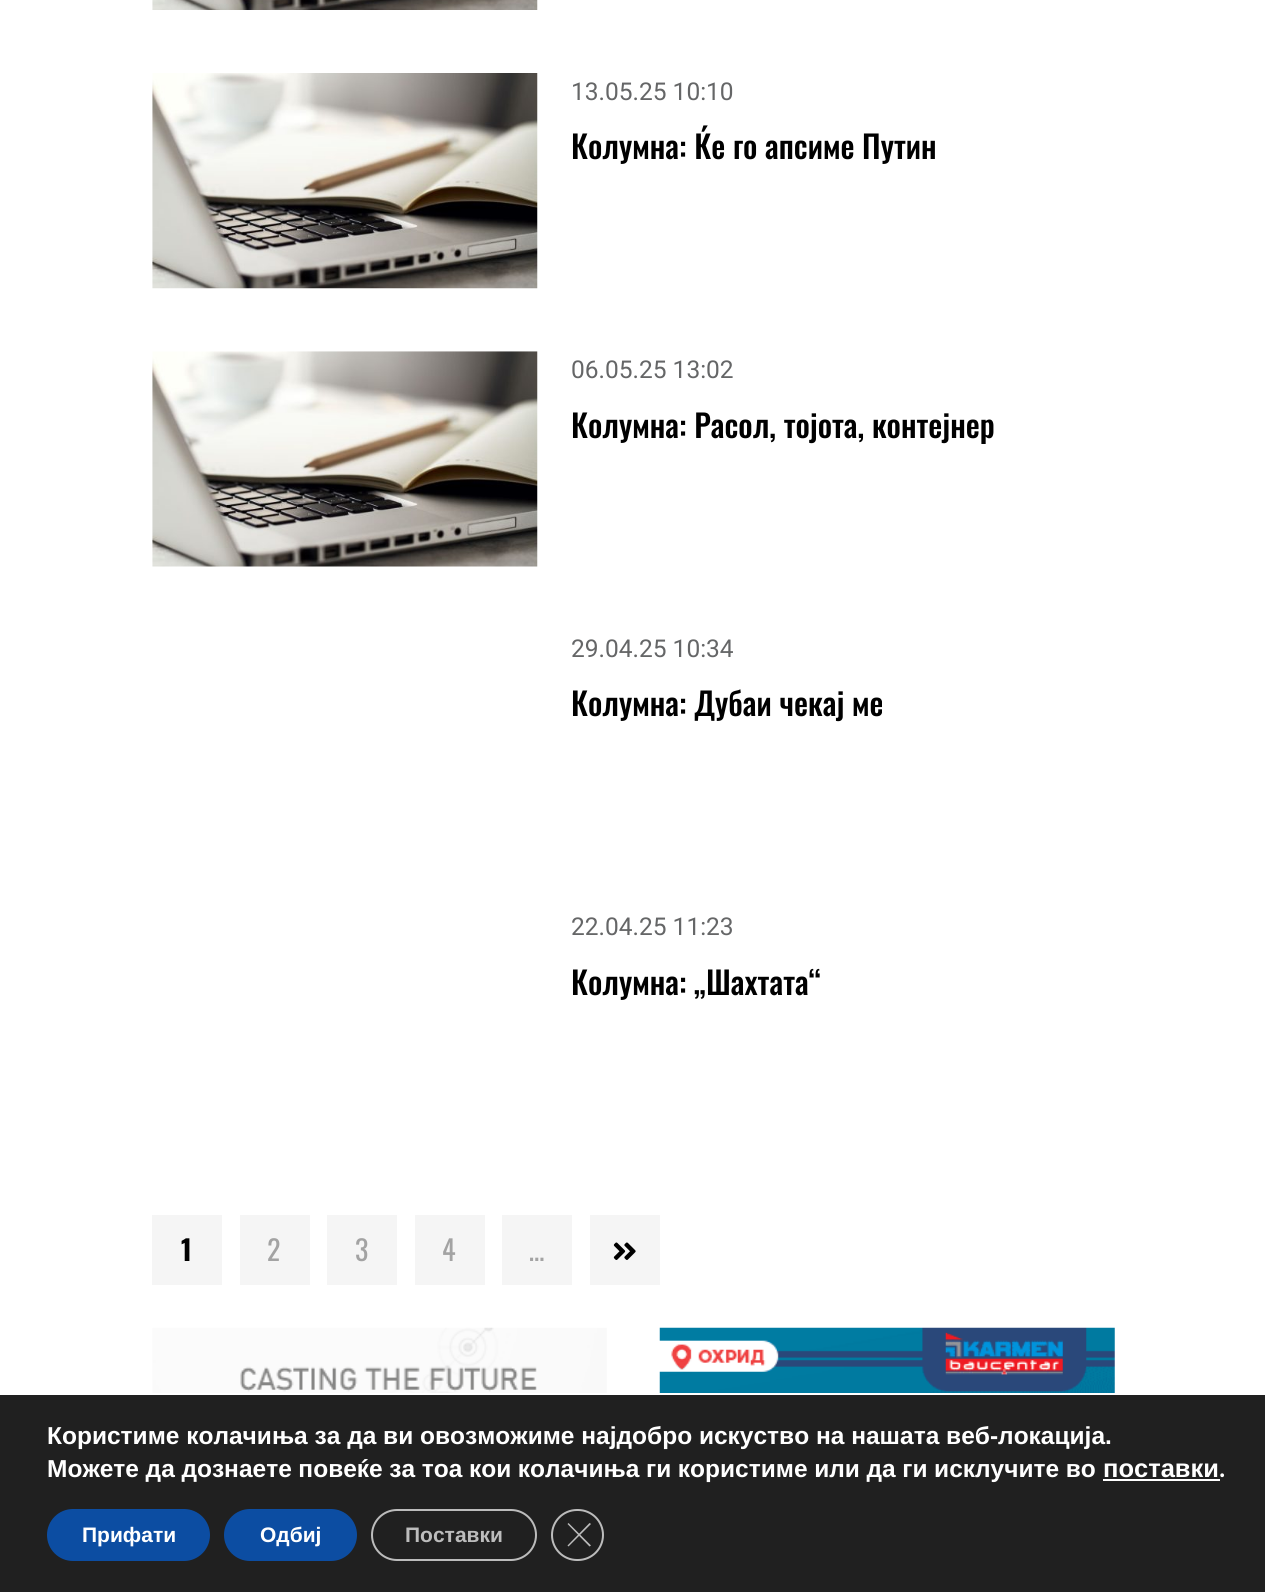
#include <cairo.h>
#include <math.h>
#include <stddef.h>


static void ink(cairo_t *ctx, unsigned color) {
    cairo_set_source_rgb(ctx, (color >> 16) / 255.0, (color >> 8 & 255) / 255.0, (color & 255) / 255.0);
}

static void write_spaced(cairo_t *ctx, double x, double y, const char *s, double letter, double word) {
    cairo_move_to(ctx, x, y);
    while (*s) {
        char ch[5] = {0};
        int n = 0;
        do ch[n++] = *s++; while ((*s & 0xC0) == 0x80);
        cairo_show_text(ctx, ch);
        cairo_rel_move_to(ctx, letter + word * (*ch == ' '), 0);
    }
}

static void round_path(cairo_t *ctx, double x, double y, double w, double h, double r) {
    cairo_new_sub_path(ctx);
    cairo_arc(ctx, x + w - r, y + h - r, r, 0, M_PI / 2);
    cairo_arc(ctx, x + r, y + h - r, r, M_PI / 2, M_PI);
    cairo_arc(ctx, x + r, y + r, r, M_PI, 1.5 * M_PI);
    cairo_arc(ctx, x + w - r, y + r, r, 1.5 * M_PI, 2 * M_PI);
    cairo_close_path(ctx);
}

static void paste(cairo_t *ctx, const char *path, double x, double y, double w, double h) {
    cairo_surface_t *image = cairo_image_surface_create_from_png(path);
    cairo_save(ctx);
    cairo_set_source_surface(ctx, image, x, y);
    cairo_rectangle(ctx, x, y, w, h);
    cairo_fill(ctx);
    cairo_restore(ctx);
    cairo_surface_destroy(image);
}

int main(void) {
    cairo_surface_t *surface = cairo_image_surface_create(CAIRO_FORMAT_RGB24, 1265, 1592);
    cairo_t *ctx = cairo_create(surface);
    cairo_font_options_t *options = cairo_font_options_create();
    cairo_font_options_set_hint_metrics(options, CAIRO_HINT_METRICS_OFF);
    cairo_font_options_set_hint_style(options, CAIRO_HINT_STYLE_NONE);
    cairo_set_font_options(ctx, options);
    cairo_set_miter_limit(ctx, 4);
    ink(ctx, 0xFFFFFF);
    cairo_paint(ctx);
    paste(ctx, "media/1.png", 152, 0, 386, 10);
    paste(ctx, "media/2.png", 152, 73, 386, 216);
    cairo_select_font_face(ctx, "Roboto", CAIRO_FONT_SLANT_NORMAL, CAIRO_FONT_WEIGHT_NORMAL);
    cairo_set_font_size(ctx, 24.5);
    ink(ctx, 0x656667);
    cairo_move_to(ctx, 571, 100);
    cairo_show_text(ctx, "13.05.25 10:10");
    cairo_select_font_face(ctx, "Oswald Medium", CAIRO_FONT_SLANT_NORMAL, CAIRO_FONT_WEIGHT_NORMAL);
    cairo_set_font_size(ctx, 31.5);
    ink(ctx, 0x000000);
    cairo_move_to(ctx, 571, 159);
    cairo_show_text(ctx, "Колумна: Ќе го апсиме Путин");
    paste(ctx, "media/3.png", 152, 351, 386, 216);
    cairo_select_font_face(ctx, "Roboto", CAIRO_FONT_SLANT_NORMAL, CAIRO_FONT_WEIGHT_NORMAL);
    cairo_set_font_size(ctx, 24.5);
    ink(ctx, 0x656667);
    cairo_move_to(ctx, 571, 378);
    cairo_show_text(ctx, "06.05.25 13:02");
    cairo_select_font_face(ctx, "Oswald Medium", CAIRO_FONT_SLANT_NORMAL, CAIRO_FONT_WEIGHT_NORMAL);
    cairo_set_font_size(ctx, 31.5);
    ink(ctx, 0x000000);
    cairo_move_to(ctx, 571, 438);
    cairo_show_text(ctx, "Колумна: Расол, тојота, контејнер");
    cairo_select_font_face(ctx, "Roboto", CAIRO_FONT_SLANT_NORMAL, CAIRO_FONT_WEIGHT_NORMAL);
    cairo_set_font_size(ctx, 24.5);
    ink(ctx, 0x656667);
    cairo_move_to(ctx, 571, 657);
    cairo_show_text(ctx, "29.04.25 10:34");
    cairo_select_font_face(ctx, "Oswald Medium", CAIRO_FONT_SLANT_NORMAL, CAIRO_FONT_WEIGHT_NORMAL);
    cairo_set_font_size(ctx, 31.5);
    ink(ctx, 0x000000);
    cairo_move_to(ctx, 571, 716);
    cairo_show_text(ctx, "Колумна: Дубаи чекај ме");
    cairo_select_font_face(ctx, "Roboto", CAIRO_FONT_SLANT_NORMAL, CAIRO_FONT_WEIGHT_NORMAL);
    cairo_set_font_size(ctx, 24.5);
    ink(ctx, 0x656667);
    cairo_move_to(ctx, 571, 935);
    cairo_show_text(ctx, "22.04.25 11:23");
    cairo_select_font_face(ctx, "Oswald Medium", CAIRO_FONT_SLANT_NORMAL, CAIRO_FONT_WEIGHT_NORMAL);
    cairo_set_font_size(ctx, 31.5);
    ink(ctx, 0x000000);
    cairo_move_to(ctx, 571, 995);
    cairo_show_text(ctx, "Колумна: „Шахтата“");
    ink(ctx, 0xF5F5F5);
    cairo_rectangle(ctx, 152, 1215, 70, 70);
    cairo_fill(ctx);
    cairo_select_font_face(ctx, "Oswald", CAIRO_FONT_SLANT_NORMAL, CAIRO_FONT_WEIGHT_BOLD);
    cairo_set_font_size(ctx, 28);
    ink(ctx, 0x000000);
    cairo_move_to(ctx, 181, 1261);
    cairo_show_text(ctx, "1");
    ink(ctx, 0xF5F5F5);
    cairo_rectangle(ctx, 240, 1215, 70, 70);
    cairo_fill(ctx);
    cairo_select_font_face(ctx, "Oswald", CAIRO_FONT_SLANT_NORMAL, CAIRO_FONT_WEIGHT_NORMAL);
    ink(ctx, 0xA3A3A3);
    cairo_move_to(ctx, 267, 1261);
    cairo_show_text(ctx, "2");
    ink(ctx, 0xF5F5F5);
    cairo_rectangle(ctx, 327, 1215, 70, 70);
    cairo_fill(ctx);
    ink(ctx, 0xA3A3A3);
    cairo_move_to(ctx, 355, 1261);
    cairo_show_text(ctx, "3");
    ink(ctx, 0xF5F5F5);
    cairo_rectangle(ctx, 415, 1215, 70, 70);
    cairo_fill(ctx);
    ink(ctx, 0xA3A3A3);
    cairo_move_to(ctx, 442, 1261);
    cairo_show_text(ctx, "4");
    ink(ctx, 0xF5F5F5);
    cairo_rectangle(ctx, 502, 1215, 70, 70);
    cairo_fill(ctx);
    ink(ctx, 0xA3A3A3);
    cairo_move_to(ctx, 529, 1261);
    cairo_show_text(ctx, "…");
    ink(ctx, 0xF5F5F5);
    cairo_rectangle(ctx, 590, 1215, 70, 70);
    cairo_fill(ctx);
    paste(ctx, "media/4.png", 613, 1242, 23, 18);
    paste(ctx, "media/5.png", 152, 1327, 455, 66);
    paste(ctx, "media/6.png", 659, 1327, 456, 66);
    ink(ctx, 0x202020);
    cairo_rectangle(ctx, 0, 1395, 1265, 197);
    cairo_fill(ctx);
    cairo_select_font_face(ctx, "Liberation Sans", CAIRO_FONT_SLANT_NORMAL, CAIRO_FONT_WEIGHT_BOLD);
    cairo_set_font_size(ctx, 24.5);
    ink(ctx, 0xFFFFFF);
    cairo_move_to(ctx, 47, 1444);
    cairo_show_text(ctx, "Користиме колачиња за да ви овозможиме најдобро искуство на нашата веб-локација.");
    write_spaced(ctx, 47, 1477, "Можете да дознаете повеќе за тоа кои колачиња ги користиме или да ги исклучите во", 0, -0.2);
    cairo_set_font_size(ctx, 25.5);
    cairo_move_to(ctx, 1103, 1477);
    cairo_show_text(ctx, "поставки");
    cairo_select_font_face(ctx, "Nunito", CAIRO_FONT_SLANT_NORMAL, CAIRO_FONT_WEIGHT_BOLD);
    cairo_move_to(ctx, 1219, 1477);
    cairo_show_text(ctx, ".");
    cairo_rectangle(ctx, 1103, 1479, 117, 2);
    cairo_fill(ctx);
    ink(ctx, 0x0C4DA2);
    round_path(ctx, 47, 1509, 163, 52, 26);
    cairo_fill(ctx);
    cairo_select_font_face(ctx, "Liberation Sans", CAIRO_FONT_SLANT_NORMAL, CAIRO_FONT_WEIGHT_BOLD);
    cairo_set_font_size(ctx, 21);
    ink(ctx, 0xFFFFFF);
    cairo_move_to(ctx, 82, 1542);
    cairo_show_text(ctx, "Прифати");
    ink(ctx, 0x0C4DA2);
    round_path(ctx, 224, 1509, 133, 52, 26);
    cairo_fill(ctx);
    ink(ctx, 0xFFFFFF);
    cairo_move_to(ctx, 260, 1542);
    cairo_show_text(ctx, "Одбиј");
    round_path(ctx, 372, 1510, 164, 50, 25);
    ink(ctx, 0xBCBCBC);
    cairo_stroke(ctx);
    cairo_move_to(ctx, 405, 1542);
    cairo_show_text(ctx, "Поставки");
    round_path(ctx, 552, 1510, 51, 50, 25);
    cairo_stroke(ctx);
    cairo_new_path(ctx);
    cairo_move_to(ctx, 589.5, 1523);
    cairo_line_to(ctx, 591, 1524);
    cairo_line_to(ctx, 568.5, 1546.5);
    cairo_line_to(ctx, 567.5, 1545.5);
    cairo_close_path(ctx);
    cairo_fill(ctx);
    cairo_new_path(ctx);
    cairo_move_to(ctx, 567.5, 1524);
    cairo_line_to(ctx, 568.5, 1523);
    cairo_line_to(ctx, 591, 1545.5);
    cairo_line_to(ctx, 589.5, 1546.5);
    cairo_close_path(ctx);
    cairo_fill(ctx);
    cairo_surface_write_to_png(surface, "image.png");
    cairo_font_options_destroy(options);
    cairo_destroy(ctx);
    cairo_surface_destroy(surface);
    return 0;
}
